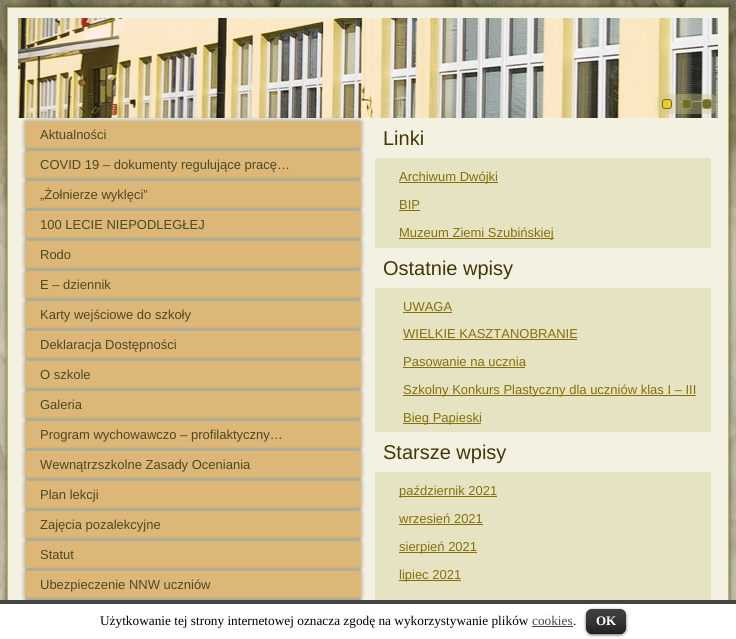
#include <cairo.h>
#include <math.h>
#include <stddef.h>


static void ink(cairo_t *ctx, unsigned color) {
    cairo_set_source_rgb(ctx, (color >> 16) / 255.0, (color >> 8 & 255) / 255.0, (color & 255) / 255.0);
}

static void round_path(cairo_t *ctx, double x, double y, double w, double h, double r) {
    cairo_new_sub_path(ctx);
    cairo_arc(ctx, x + w - r, y + h - r, r, 0, M_PI / 2);
    cairo_arc(ctx, x + r, y + h - r, r, M_PI / 2, M_PI);
    cairo_arc(ctx, x + r, y + r, r, M_PI, 1.5 * M_PI);
    cairo_arc(ctx, x + w - r, y + r, r, 1.5 * M_PI, 2 * M_PI);
    cairo_close_path(ctx);
}

static void blur_box(cairo_t *ctx, double x, double y, double w, double h, double r, double blur, double alpha) {
    cairo_push_group_with_content(ctx, CAIRO_CONTENT_ALPHA);
    cairo_set_operator(ctx, CAIRO_OPERATOR_SOURCE);
    for (int i = 15; i >= -15 && fmin(w, h) + blur * i / 3 > 0; i -= 2) {
        double e = blur * i / 6;
        cairo_set_source_rgba(ctx, 0, 0, 0, alpha * erfc((i - 1) / 8.5) / 2);
        round_path(ctx, x - e, y - e, w + 2 * e, h + 2 * e, fmax(0, fmin(r + e + blur * .6, fmin(w, h) / 2 + e)));
        cairo_fill(ctx);
    }
    cairo_pattern_t *soft = cairo_pop_group(ctx);
    cairo_mask(ctx, soft);
    cairo_pattern_destroy(soft);
}

static void paste(cairo_t *ctx, const char *path, double x, double y, double w, double h) {
    cairo_surface_t *image = cairo_image_surface_create_from_png(path);
    cairo_save(ctx);
    cairo_set_source_surface(ctx, image, x, y);
    cairo_rectangle(ctx, x, y, w, h);
    cairo_fill(ctx);
    cairo_restore(ctx);
    cairo_surface_destroy(image);
}

int main(void) {
    cairo_surface_t *surface = cairo_image_surface_create(CAIRO_FORMAT_RGB24, 736, 639);
    cairo_t *ctx = cairo_create(surface);
    cairo_font_options_t *options = cairo_font_options_create();
    cairo_font_options_set_hint_metrics(options, CAIRO_HINT_METRICS_OFF);
    cairo_font_options_set_hint_style(options, CAIRO_HINT_STYLE_NONE);
    cairo_set_font_options(ctx, options);
    cairo_set_miter_limit(ctx, 4);
    ink(ctx, 0xFFFFFF);
    cairo_paint(ctx);
    paste(ctx, "media/1.png", 0, 0, 736, 600);
    ink(ctx, 0x000000);
    blur_box(ctx, 5, 5, 726, 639, 0, 1.5, 0.25);
    ink(ctx, 0xF3F2E2);
    cairo_rectangle(ctx, 8, 8, 720, 592);
    cairo_fill(ctx);
    cairo_rectangle(ctx, 7.5, 7.5, 721, 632);
    ink(ctx, 0xBAB65E);
    cairo_set_line_width(ctx, 1);
    cairo_stroke(ctx);
    paste(ctx, "media/2.png", 18, 18, 700, 100);
    cairo_set_source_rgba(ctx, 0.804, 0.788, 0.537, 0.4);
    round_path(ctx, 657, 94, 60, 20, 6);
    cairo_fill(ctx);
    ink(ctx, 0xF0CB28);
    round_path(ctx, 662.5, 99.5, 9, 9, 2.5);
    cairo_fill_preserve(ctx);
    ink(ctx, 0x6F6C2F);
    cairo_stroke(ctx);
    round_path(ctx, 682.5, 99.5, 9, 9, 2.5);
    cairo_fill_preserve(ctx);
    ink(ctx, 0x9A9542);
    cairo_stroke(ctx);
    ink(ctx, 0x6F6C2F);
    round_path(ctx, 702.5, 99.5, 9, 9, 2.5);
    cairo_fill_preserve(ctx);
    ink(ctx, 0x9A9542);
    cairo_stroke(ctx);
    ink(ctx, 0xE5E3C2);
    round_path(ctx, 25, 121, 336, 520, 2);
    cairo_fill(ctx);
    ink(ctx, 0x000000);
    blur_box(ctx, 23, 119, 340, 31, 4, 1.5, 0.2);
    ink(ctx, 0xDDB778);
    round_path(ctx, 25, 121, 336, 27, 2);
    cairo_fill(ctx);
    cairo_select_font_face(ctx, "Liberation Sans", CAIRO_FONT_SLANT_NORMAL, CAIRO_FONT_WEIGHT_NORMAL);
    cairo_set_font_size(ctx, 13);
    ink(ctx, 0x4B4920);
    cairo_move_to(ctx, 40, 139);
    cairo_show_text(ctx, "Aktualności");
    ink(ctx, 0x000000);
    blur_box(ctx, 23, 149, 340, 31, 4, 1.5, 0.2);
    ink(ctx, 0xDDB778);
    round_path(ctx, 25, 151, 336, 27, 2);
    cairo_fill(ctx);
    ink(ctx, 0x4B4920);
    cairo_move_to(ctx, 40, 169);
    cairo_show_text(ctx, "COVID 19 – dokumenty regulujące pracę…");
    ink(ctx, 0x000000);
    blur_box(ctx, 23, 179, 340, 31, 4, 1.5, 0.2);
    ink(ctx, 0xDDB778);
    round_path(ctx, 25, 181, 336, 27, 2);
    cairo_fill(ctx);
    ink(ctx, 0x4B4920);
    cairo_move_to(ctx, 40, 199);
    cairo_show_text(ctx, "„Żołnierze wyklęci”");
    ink(ctx, 0x000000);
    blur_box(ctx, 23, 209, 340, 31, 4, 1.5, 0.2);
    ink(ctx, 0xDDB778);
    round_path(ctx, 25, 211, 336, 27, 2);
    cairo_fill(ctx);
    ink(ctx, 0x4B4920);
    cairo_move_to(ctx, 40, 229);
    cairo_show_text(ctx, "100 LECIE NIEPODLEGŁEJ");
    ink(ctx, 0x000000);
    blur_box(ctx, 23, 239, 340, 31, 4, 1.5, 0.2);
    ink(ctx, 0xDDB778);
    round_path(ctx, 25, 241, 336, 27, 2);
    cairo_fill(ctx);
    ink(ctx, 0x4B4920);
    cairo_move_to(ctx, 40, 259);
    cairo_show_text(ctx, "Rodo");
    ink(ctx, 0x000000);
    blur_box(ctx, 23, 269, 340, 31, 4, 1.5, 0.2);
    ink(ctx, 0xDDB778);
    round_path(ctx, 25, 271, 336, 27, 2);
    cairo_fill(ctx);
    ink(ctx, 0x4B4920);
    cairo_move_to(ctx, 40, 289);
    cairo_show_text(ctx, "E – dziennik");
    ink(ctx, 0x000000);
    blur_box(ctx, 23, 299, 340, 31, 4, 1.5, 0.2);
    ink(ctx, 0xDDB778);
    round_path(ctx, 25, 301, 336, 27, 2);
    cairo_fill(ctx);
    ink(ctx, 0x4B4920);
    cairo_move_to(ctx, 40, 319);
    cairo_show_text(ctx, "Karty wejściowe do szkoły");
    ink(ctx, 0x000000);
    blur_box(ctx, 23, 329, 340, 31, 4, 1.5, 0.2);
    ink(ctx, 0xDDB778);
    round_path(ctx, 25, 331, 336, 27, 2);
    cairo_fill(ctx);
    ink(ctx, 0x4B4920);
    cairo_move_to(ctx, 40, 349);
    cairo_show_text(ctx, "Deklaracja Dostępności");
    ink(ctx, 0x000000);
    blur_box(ctx, 23, 359, 340, 31, 4, 1.5, 0.2);
    ink(ctx, 0xDDB778);
    round_path(ctx, 25, 361, 336, 27, 2);
    cairo_fill(ctx);
    ink(ctx, 0x4B4920);
    cairo_move_to(ctx, 40, 379);
    cairo_show_text(ctx, "O szkole");
    ink(ctx, 0x000000);
    blur_box(ctx, 23, 389, 340, 31, 4, 1.5, 0.2);
    ink(ctx, 0xDDB778);
    round_path(ctx, 25, 391, 336, 27, 2);
    cairo_fill(ctx);
    ink(ctx, 0x4B4920);
    cairo_move_to(ctx, 40, 409);
    cairo_show_text(ctx, "Galeria");
    ink(ctx, 0x000000);
    blur_box(ctx, 23, 419, 340, 31, 4, 1.5, 0.2);
    ink(ctx, 0xDDB778);
    round_path(ctx, 25, 421, 336, 27, 2);
    cairo_fill(ctx);
    ink(ctx, 0x4B4920);
    cairo_move_to(ctx, 40, 439);
    cairo_show_text(ctx, "Program wychowawczo – profilaktyczny…");
    ink(ctx, 0x000000);
    blur_box(ctx, 23, 449, 340, 31, 4, 1.5, 0.2);
    ink(ctx, 0xDDB778);
    round_path(ctx, 25, 451, 336, 27, 2);
    cairo_fill(ctx);
    ink(ctx, 0x4B4920);
    cairo_move_to(ctx, 40, 469);
    cairo_show_text(ctx, "Wewnątrzszkolne Zasady Oceniania");
    ink(ctx, 0x000000);
    blur_box(ctx, 23, 479, 340, 31, 4, 1.5, 0.2);
    ink(ctx, 0xDDB778);
    round_path(ctx, 25, 481, 336, 27, 2);
    cairo_fill(ctx);
    ink(ctx, 0x4B4920);
    cairo_move_to(ctx, 40, 499);
    cairo_show_text(ctx, "Plan lekcji");
    ink(ctx, 0x000000);
    blur_box(ctx, 23, 509, 340, 31, 4, 1.5, 0.2);
    ink(ctx, 0xDDB778);
    round_path(ctx, 25, 511, 336, 27, 2);
    cairo_fill(ctx);
    ink(ctx, 0x4B4920);
    cairo_move_to(ctx, 40, 529);
    cairo_show_text(ctx, "Zajęcia pozalekcyjne");
    ink(ctx, 0x000000);
    blur_box(ctx, 23, 539, 340, 31, 4, 1.5, 0.2);
    ink(ctx, 0xDDB778);
    round_path(ctx, 25, 541, 336, 27, 2);
    cairo_fill(ctx);
    ink(ctx, 0x4B4920);
    cairo_move_to(ctx, 40, 559);
    cairo_show_text(ctx, "Statut");
    ink(ctx, 0x000000);
    blur_box(ctx, 23, 569, 340, 31, 4, 1.5, 0.2);
    ink(ctx, 0xDDB778);
    round_path(ctx, 25, 571, 336, 27, 2);
    cairo_fill(ctx);
    ink(ctx, 0x4B4920);
    cairo_move_to(ctx, 40, 589);
    cairo_show_text(ctx, "Ubezpieczenie NNW uczniów");
    ink(ctx, 0x000000);
    blur_box(ctx, 23, 599, 340, 31, 4, 1.5, 0.2);
    cairo_set_font_size(ctx, 20);
    ink(ctx, 0x433705);
    cairo_move_to(ctx, 383, 145);
    cairo_show_text(ctx, "Linki");
    ink(ctx, 0xE5E3C2);
    round_path(ctx, 375, 158, 336, 90, 2);
    cairo_fill(ctx);
    ink(ctx, 0x866F09);
    cairo_rectangle(ctx, 399, 182, 99, 1);
    cairo_fill(ctx);
    cairo_set_font_size(ctx, 13);
    cairo_move_to(ctx, 399, 181);
    cairo_show_text(ctx, "Archiwum Dwójki");
    cairo_move_to(ctx, 399, 209);
    cairo_show_text(ctx, "BIP");
    cairo_rectangle(ctx, 399, 210, 21, 1);
    cairo_fill(ctx);
    cairo_rectangle(ctx, 399, 238, 155, 1);
    cairo_fill(ctx);
    cairo_move_to(ctx, 399, 237);
    cairo_show_text(ctx, "Muzeum Ziemi Szubińskiej");
    cairo_set_font_size(ctx, 20);
    ink(ctx, 0x433705);
    cairo_move_to(ctx, 383, 275);
    cairo_show_text(ctx, "Ostatnie wpisy");
    ink(ctx, 0xE5E3C2);
    round_path(ctx, 375, 288, 336, 144, 2);
    cairo_fill(ctx);
    cairo_set_font_size(ctx, 13);
    ink(ctx, 0x866F09);
    cairo_move_to(ctx, 403, 311);
    cairo_show_text(ctx, "UWAGA");
    cairo_rectangle(ctx, 403, 312, 49, 1);
    cairo_fill(ctx);
    cairo_move_to(ctx, 403, 338);
    cairo_show_text(ctx, "WIELKIE KASZTANOBRANIE");
    cairo_rectangle(ctx, 403, 339, 174, 1);
    cairo_fill(ctx);
    cairo_move_to(ctx, 403, 366);
    cairo_show_text(ctx, "Pasowanie na ucznia");
    cairo_rectangle(ctx, 403, 367, 122, 1);
    cairo_fill(ctx);
    cairo_rectangle(ctx, 403, 395, 293, 1);
    cairo_fill(ctx);
    cairo_move_to(ctx, 403, 394);
    cairo_show_text(ctx, "Szkolny Konkurs Plastyczny dla uczniów klas I – III");
    cairo_rectangle(ctx, 403, 423, 78, 1);
    cairo_fill(ctx);
    cairo_move_to(ctx, 403, 422);
    cairo_show_text(ctx, "Bieg Papieski");
    cairo_set_font_size(ctx, 20);
    ink(ctx, 0x433705);
    cairo_move_to(ctx, 383, 459);
    cairo_show_text(ctx, "Starsze wpisy");
    ink(ctx, 0xE5E3C2);
    round_path(ctx, 375, 472, 336, 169, 2);
    cairo_fill(ctx);
    ink(ctx, 0x866F09);
    cairo_rectangle(ctx, 399, 496, 98, 1);
    cairo_fill(ctx);
    cairo_set_font_size(ctx, 13);
    cairo_move_to(ctx, 399, 495);
    cairo_show_text(ctx, "październik 2021");
    cairo_move_to(ctx, 399, 523);
    cairo_show_text(ctx, "wrzesień 2021");
    cairo_rectangle(ctx, 399, 524, 84, 1);
    cairo_fill(ctx);
    cairo_rectangle(ctx, 399, 552, 78, 1);
    cairo_fill(ctx);
    cairo_move_to(ctx, 399, 551);
    cairo_show_text(ctx, "sierpień 2021");
    cairo_rectangle(ctx, 399, 580, 62, 1);
    cairo_fill(ctx);
    cairo_move_to(ctx, 399, 579);
    cairo_show_text(ctx, "lipiec 2021");
    ink(ctx, 0xFFFFFF);
    cairo_rectangle(ctx, 2, 604, 732, 35);
    cairo_fill(ctx);
    ink(ctx, 0x444444);
    cairo_rectangle(ctx, 0, 600, 736, 4);
    cairo_fill(ctx);
    cairo_select_font_face(ctx, "Liberation Serif", CAIRO_FONT_SLANT_NORMAL, CAIRO_FONT_WEIGHT_NORMAL);
    cairo_set_font_size(ctx, 13.3);
    ink(ctx, 0x000000);
    cairo_move_to(ctx, 100, 625);
    cairo_show_text(ctx, "Użytkowanie tej strony internetowej oznacza zgodę na wykorzystywanie plików");
    ink(ctx, 0x444444);
    cairo_move_to(ctx, 532, 625);
    cairo_show_text(ctx, "cookies");
    cairo_rectangle(ctx, 532, 626, 41, 1);
    cairo_fill(ctx);
    ink(ctx, 0x000000);
    cairo_move_to(ctx, 573, 625);
    cairo_show_text(ctx, ".");
    ink(ctx, 0x000000);
    blur_box(ctx, 586, 610, 40, 25, 6, 1.5, 0.6);
    ink(ctx, 0x000000);
    round_path(ctx, 586, 609, 40, 25, 6);
    cairo_fill(ctx);
    paste(ctx, "media/3.png", 586, 609, 40, 25);
    cairo_set_source_rgba(ctx, 0, 0, 0, 0.25);
    cairo_rectangle(ctx, 589, 633, 34, 1);
    cairo_fill(ctx);
    cairo_select_font_face(ctx, "Liberation Serif", CAIRO_FONT_SLANT_NORMAL, CAIRO_FONT_WEIGHT_BOLD);
    cairo_set_font_size(ctx, 13);
    ink(ctx, 0xFFFFFF);
    cairo_move_to(ctx, 596, 625);
    cairo_show_text(ctx, "OK");
    cairo_surface_write_to_png(surface, "image.png");
    cairo_font_options_destroy(options);
    cairo_destroy(ctx);
    cairo_surface_destroy(surface);
    return 0;
}
